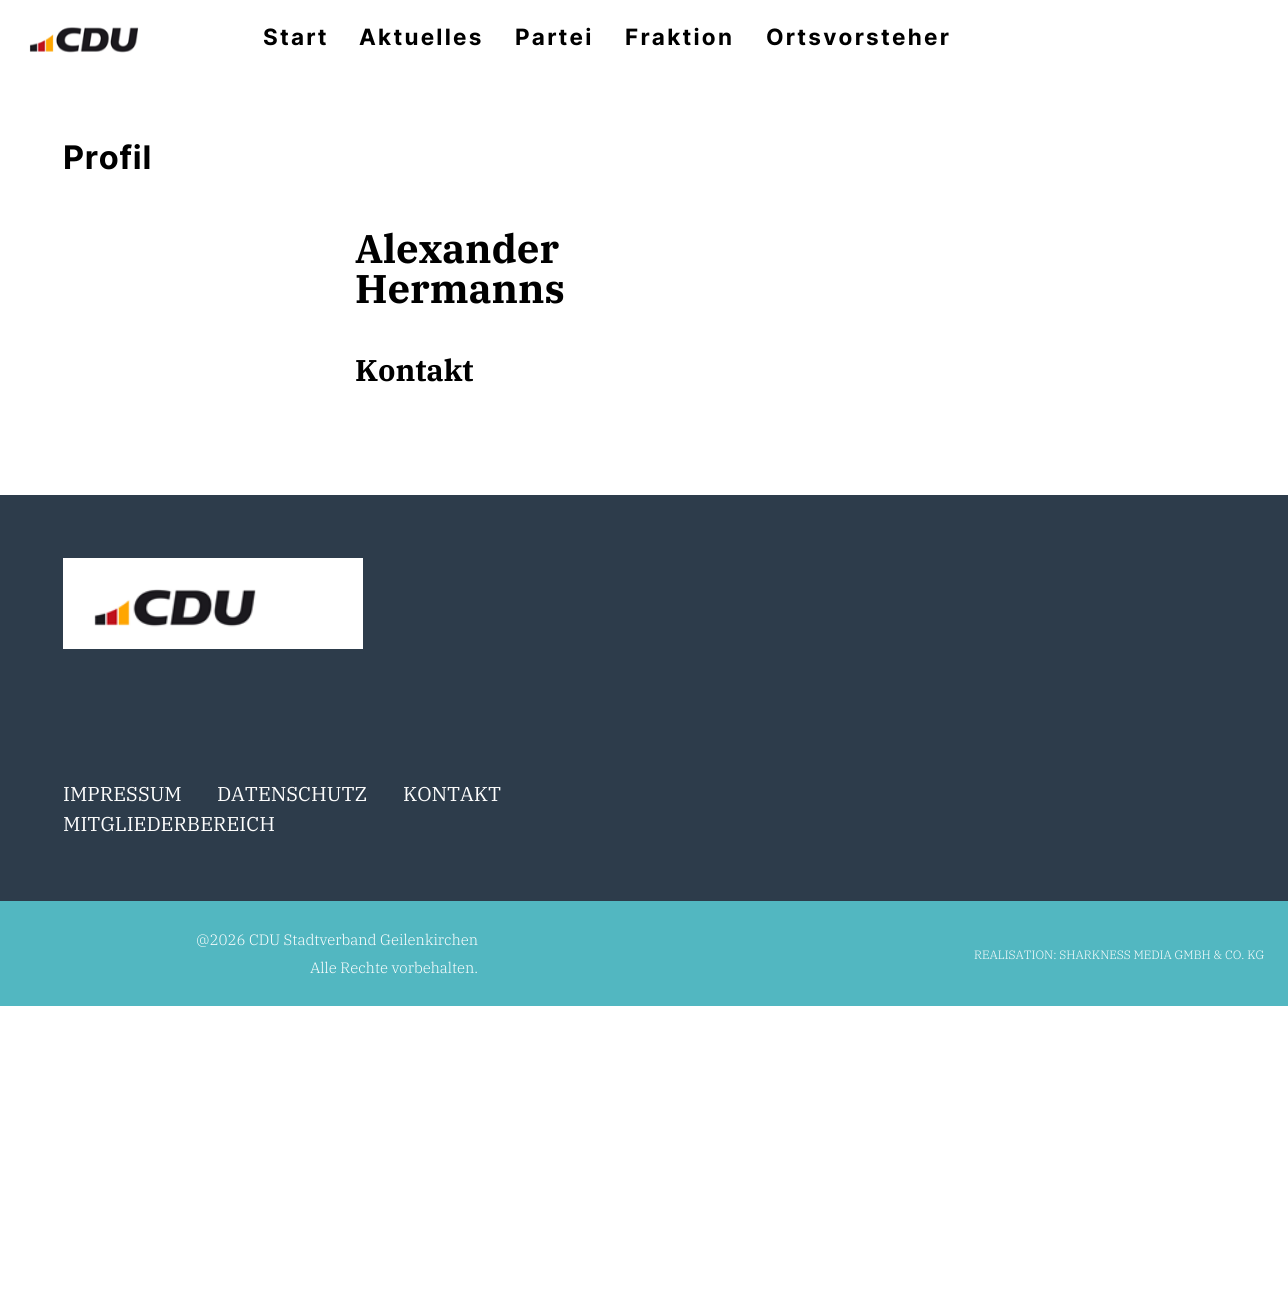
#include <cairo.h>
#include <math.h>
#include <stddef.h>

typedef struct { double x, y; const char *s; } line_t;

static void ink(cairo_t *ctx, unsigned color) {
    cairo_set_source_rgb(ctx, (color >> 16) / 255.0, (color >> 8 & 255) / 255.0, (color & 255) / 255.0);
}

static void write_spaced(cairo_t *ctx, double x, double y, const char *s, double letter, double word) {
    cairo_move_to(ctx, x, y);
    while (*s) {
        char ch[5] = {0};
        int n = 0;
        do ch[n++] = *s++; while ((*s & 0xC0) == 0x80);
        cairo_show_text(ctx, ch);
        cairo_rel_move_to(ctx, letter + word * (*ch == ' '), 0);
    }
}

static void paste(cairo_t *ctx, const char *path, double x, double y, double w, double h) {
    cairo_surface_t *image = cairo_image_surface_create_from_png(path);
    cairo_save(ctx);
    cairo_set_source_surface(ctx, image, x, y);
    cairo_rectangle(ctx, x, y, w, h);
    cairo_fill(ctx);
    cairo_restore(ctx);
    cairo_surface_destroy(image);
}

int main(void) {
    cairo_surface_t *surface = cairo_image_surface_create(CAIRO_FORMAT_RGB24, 1288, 1312);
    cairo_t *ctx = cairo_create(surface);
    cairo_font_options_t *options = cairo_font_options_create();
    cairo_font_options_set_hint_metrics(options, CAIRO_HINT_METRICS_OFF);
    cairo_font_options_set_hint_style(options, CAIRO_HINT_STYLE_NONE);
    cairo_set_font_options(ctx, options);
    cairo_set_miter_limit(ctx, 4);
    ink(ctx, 0xFFFFFF);
    cairo_paint(ctx);
    paste(ctx, "media/1.png", 29, 27, 110, 26);
    cairo_select_font_face(ctx, "Inter", CAIRO_FONT_SLANT_NORMAL, CAIRO_FONT_WEIGHT_BOLD);
    cairo_set_font_size(ctx, 22.5);
    ink(ctx, 0x000000);
    {
        static const line_t items[] = {
            {263, 45, "Start"},
            {359, 45, "Aktuelles"},
            {515, 45, "Partei"},
            {625, 45, "Fraktion"},
            {766, 45, "Ortsvorsteher"},
        };
        for (size_t i = 0; i < sizeof items / sizeof *items; i++) {
            write_spaced(ctx, items[i].x, items[i].y, items[i].s, 2.25, 0);
        }
    }
    cairo_set_font_size(ctx, 32.5);
    write_spaced(ctx, 63, 169, "Profil", 0.75, 0);
    cairo_select_font_face(ctx, "IBM Plex Serif", CAIRO_FONT_SLANT_NORMAL, CAIRO_FONT_WEIGHT_BOLD);
    cairo_set_font_size(ctx, 40);
    cairo_move_to(ctx, 355, 263);
    cairo_show_text(ctx, "Alexander");
    cairo_move_to(ctx, 355, 303);
    cairo_show_text(ctx, "Hermanns");
    cairo_set_font_size(ctx, 30);
    cairo_move_to(ctx, 355, 381);
    cairo_show_text(ctx, "Kontakt");
    ink(ctx, 0x2D3C4B);
    cairo_rectangle(ctx, 0, 495, 1288, 406);
    cairo_fill(ctx);
    ink(ctx, 0xFFFFFF);
    cairo_rectangle(ctx, 63, 558, 300, 91);
    cairo_fill(ctx);
    paste(ctx, "media/2.png", 94, 589, 162, 38);
    cairo_select_font_face(ctx, "IBM Plex Serif", CAIRO_FONT_SLANT_NORMAL, CAIRO_FONT_WEIGHT_NORMAL);
    cairo_set_font_size(ctx, 20);
    {
        static const line_t items[] = {
            {63, 801, "IMPRESSUM"},
            {217, 801, "DATENSCHUTZ"},
            {403, 801, "KONTAKT"},
            {63, 831, "MITGLIEDERBEREICH"},
        };
        for (size_t i = 0; i < sizeof items / sizeof *items; i++) {
            cairo_move_to(ctx, items[i].x, items[i].y);
            cairo_show_text(ctx, items[i].s);
        }
    }
    ink(ctx, 0x52B7C1);
    cairo_rectangle(ctx, 0, 901, 1288, 105);
    cairo_fill(ctx);
    cairo_select_font_face(ctx, "IBM Plex Serif Light", CAIRO_FONT_SLANT_NORMAL, CAIRO_FONT_WEIGHT_NORMAL);
    cairo_set_font_size(ctx, 15);
    ink(ctx, 0xFFFFFF);
    cairo_move_to(ctx, 196, 945);
    cairo_show_text(ctx, "@2026 CDU Stadtverband Geilenkirchen");
    cairo_move_to(ctx, 310, 973);
    cairo_show_text(ctx, "Alle Rechte vorbehalten.");
    cairo_set_font_size(ctx, 12);
    cairo_move_to(ctx, 974, 959);
    cairo_show_text(ctx, "REALISATION: SHARKNESS MEDIA GMBH & CO. KG");
    cairo_surface_write_to_png(surface, "image.png");
    cairo_font_options_destroy(options);
    cairo_destroy(ctx);
    cairo_surface_destroy(surface);
    return 0;
}
